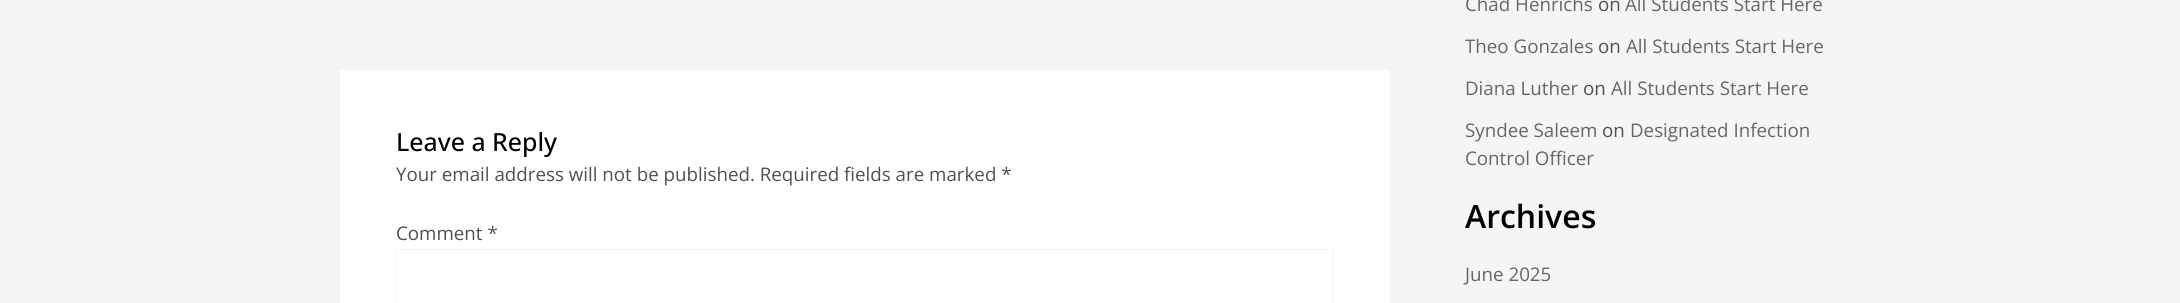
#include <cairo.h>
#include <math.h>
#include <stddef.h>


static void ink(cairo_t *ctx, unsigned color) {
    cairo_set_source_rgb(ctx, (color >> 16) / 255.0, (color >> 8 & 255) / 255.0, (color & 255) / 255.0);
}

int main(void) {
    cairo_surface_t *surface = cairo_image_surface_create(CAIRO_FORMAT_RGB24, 2180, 303);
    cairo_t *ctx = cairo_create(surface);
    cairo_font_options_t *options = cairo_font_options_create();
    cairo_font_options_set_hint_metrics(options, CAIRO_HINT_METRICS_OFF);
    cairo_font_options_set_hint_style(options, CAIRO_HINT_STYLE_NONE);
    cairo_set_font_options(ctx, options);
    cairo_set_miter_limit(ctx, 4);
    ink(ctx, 0xF5F5F5);
    cairo_paint(ctx);
    ink(ctx, 0xFFFFFF);
    cairo_rectangle(ctx, 340, 70, 1050, 233);
    cairo_fill(ctx);
    cairo_select_font_face(ctx, "Open Sans Medium", CAIRO_FONT_SLANT_NORMAL, CAIRO_FONT_WEIGHT_NORMAL);
    cairo_set_font_size(ctx, 25);
    ink(ctx, 0x000000);
    cairo_move_to(ctx, 396, 151);
    cairo_show_text(ctx, "Leave a Reply");
    cairo_select_font_face(ctx, "Open Sans", CAIRO_FONT_SLANT_NORMAL, CAIRO_FONT_WEIGHT_NORMAL);
    cairo_set_font_size(ctx, 18.75);
    ink(ctx, 0x4B4F58);
    cairo_move_to(ctx, 396, 181);
    cairo_show_text(ctx, "Your email address will not be published. Required fields are marked *");
    cairo_move_to(ctx, 396, 240);
    cairo_show_text(ctx, "Comment *");
    cairo_rectangle(ctx, 396.5, 249.5, 937, 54);
    ink(ctx, 0xF2F5F7);
    cairo_set_line_width(ctx, 1);
    cairo_stroke(ctx);
    ink(ctx, 0x666666);
    cairo_move_to(ctx, 1465, 11);
    cairo_show_text(ctx, "Chad Henrichs");
    ink(ctx, 0x4B4F58);
    cairo_move_to(ctx, 1598, 11);
    cairo_show_text(ctx, "on");
    ink(ctx, 0x666666);
    cairo_move_to(ctx, 1625, 11);
    cairo_show_text(ctx, "All Students Start Here");
    cairo_move_to(ctx, 1465, 53);
    cairo_show_text(ctx, "Theo Gonzales");
    ink(ctx, 0x4B4F58);
    cairo_move_to(ctx, 1598, 53);
    cairo_show_text(ctx, "on");
    ink(ctx, 0x666666);
    cairo_move_to(ctx, 1626, 53);
    cairo_show_text(ctx, "All Students Start Here");
    cairo_move_to(ctx, 1465, 95);
    cairo_show_text(ctx, "Diana Luther");
    ink(ctx, 0x4B4F58);
    cairo_move_to(ctx, 1583, 95);
    cairo_show_text(ctx, "on");
    ink(ctx, 0x666666);
    cairo_move_to(ctx, 1611, 95);
    cairo_show_text(ctx, "All Students Start Here");
    cairo_move_to(ctx, 1465, 137);
    cairo_show_text(ctx, "Syndee Saleem");
    ink(ctx, 0x4B4F58);
    cairo_move_to(ctx, 1602, 137);
    cairo_show_text(ctx, "on");
    ink(ctx, 0x666666);
    cairo_move_to(ctx, 1630, 137);
    cairo_show_text(ctx, "Designated Infection");
    cairo_move_to(ctx, 1465, 165);
    cairo_show_text(ctx, "Control Officer");
    cairo_select_font_face(ctx, "Open Sans SemiBold", CAIRO_FONT_SLANT_NORMAL, CAIRO_FONT_WEIGHT_NORMAL);
    cairo_set_font_size(ctx, 32);
    ink(ctx, 0x000000);
    cairo_move_to(ctx, 1465, 228);
    cairo_show_text(ctx, "Archives");
    cairo_select_font_face(ctx, "Open Sans", CAIRO_FONT_SLANT_NORMAL, CAIRO_FONT_WEIGHT_NORMAL);
    cairo_set_font_size(ctx, 18.75);
    ink(ctx, 0x666666);
    cairo_move_to(ctx, 1465, 281);
    cairo_show_text(ctx, "June 2025");
    cairo_surface_write_to_png(surface, "image.png");
    cairo_font_options_destroy(options);
    cairo_destroy(ctx);
    cairo_surface_destroy(surface);
    return 0;
}
